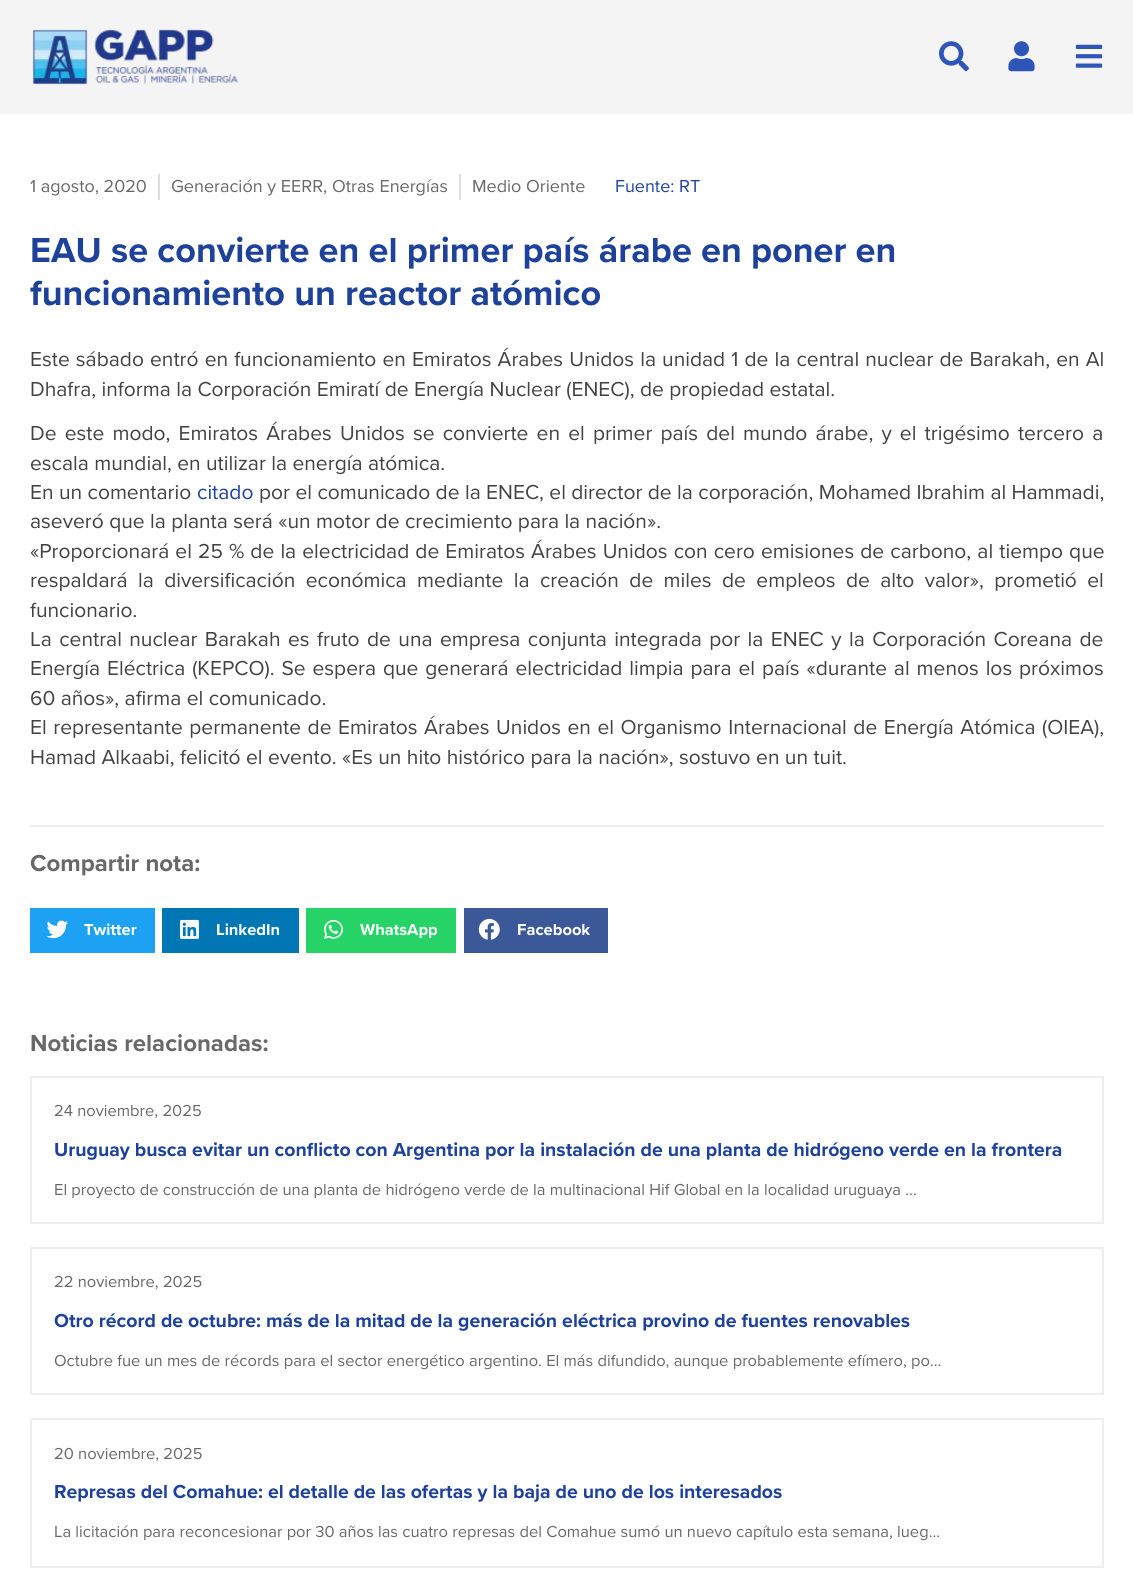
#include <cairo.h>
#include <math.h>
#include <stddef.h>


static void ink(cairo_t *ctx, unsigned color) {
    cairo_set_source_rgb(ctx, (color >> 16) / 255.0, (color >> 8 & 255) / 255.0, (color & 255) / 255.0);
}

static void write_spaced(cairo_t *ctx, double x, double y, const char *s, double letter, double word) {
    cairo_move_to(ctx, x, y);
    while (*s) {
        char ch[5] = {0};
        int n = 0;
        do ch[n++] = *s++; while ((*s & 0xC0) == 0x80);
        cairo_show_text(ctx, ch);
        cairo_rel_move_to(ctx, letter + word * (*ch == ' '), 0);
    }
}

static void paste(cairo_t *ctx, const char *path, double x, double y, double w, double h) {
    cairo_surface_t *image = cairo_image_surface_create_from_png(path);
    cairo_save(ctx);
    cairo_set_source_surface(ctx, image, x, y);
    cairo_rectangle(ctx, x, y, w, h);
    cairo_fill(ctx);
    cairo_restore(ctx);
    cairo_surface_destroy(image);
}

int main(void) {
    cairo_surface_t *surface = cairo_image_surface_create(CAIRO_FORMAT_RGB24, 1133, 1583);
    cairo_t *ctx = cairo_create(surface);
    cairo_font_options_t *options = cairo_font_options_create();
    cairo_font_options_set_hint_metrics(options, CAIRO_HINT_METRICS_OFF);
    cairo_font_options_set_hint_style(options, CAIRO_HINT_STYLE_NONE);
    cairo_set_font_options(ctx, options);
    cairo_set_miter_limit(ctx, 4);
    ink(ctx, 0xFFFFFF);
    cairo_paint(ctx);
    ink(ctx, 0xF4F4F4);
    cairo_rectangle(ctx, 0, 0, 1133, 114);
    cairo_fill(ctx);
    paste(ctx, "media/1.png", 32, 29, 206, 56);
    paste(ctx, "media/2.png", 939, 41, 30, 31);
    paste(ctx, "media/3.png", 1008, 41, 27, 31);
    paste(ctx, "media/4.png", 1075, 44, 28, 24);
    cairo_select_font_face(ctx, "Proxima Nova", CAIRO_FONT_SLANT_NORMAL, CAIRO_FONT_WEIGHT_NORMAL);
    cairo_set_font_size(ctx, 18);
    ink(ctx, 0x686868);
    cairo_move_to(ctx, 30, 192);
    cairo_show_text(ctx, "1 agosto, 2020");
    ink(ctx, 0xDDDDDD);
    cairo_rectangle(ctx, 158, 174, 2, 26);
    cairo_fill(ctx);
    ink(ctx, 0x686868);
    cairo_move_to(ctx, 171, 192);
    cairo_show_text(ctx, "Generación y EERR, Otras Energías");
    ink(ctx, 0xDDDDDD);
    cairo_rectangle(ctx, 459, 174, 2, 26);
    cairo_fill(ctx);
    ink(ctx, 0x686868);
    cairo_move_to(ctx, 472, 192);
    cairo_show_text(ctx, "Medio Oriente");
    ink(ctx, 0x1E429A);
    cairo_move_to(ctx, 615, 192);
    cairo_show_text(ctx, "Fuente: RT");
    cairo_select_font_face(ctx, "Proxima Nova", CAIRO_FONT_SLANT_NORMAL, CAIRO_FONT_WEIGHT_BOLD);
    cairo_set_font_size(ctx, 36);
    cairo_move_to(ctx, 30, 262);
    cairo_show_text(ctx, "EAU se convierte en el primer país árabe en poner en");
    cairo_move_to(ctx, 30, 305);
    cairo_show_text(ctx, "funcionamiento un reactor atómico");
    cairo_select_font_face(ctx, "Proxima Nova", CAIRO_FONT_SLANT_NORMAL, CAIRO_FONT_WEIGHT_NORMAL);
    cairo_set_font_size(ctx, 21);
    ink(ctx, 0x424242);
    write_spaced(ctx, 30, 366, "Este sábado entró en funcionamiento en Emiratos Árabes Unidos la unidad 1 de la central nuclear de Barakah, en Al", 0, 0.7);
    cairo_move_to(ctx, 30, 396);
    cairo_show_text(ctx, "Dhafra, informa la Corporación Emiratí de Energía Nuclear (ENEC), de propiedad estatal.");
    write_spaced(ctx, 30, 440, "De este modo, Emiratos Árabes Unidos se convierte en el primer país del mundo árabe, y el trigésimo tercero a", 0, 2.75);
    cairo_move_to(ctx, 30, 470);
    cairo_show_text(ctx, "escala mundial, en utilizar la energía atómica.");
    cairo_move_to(ctx, 30, 499);
    cairo_show_text(ctx, "En un comentario");
    ink(ctx, 0x1E429A);
    cairo_move_to(ctx, 197, 499);
    cairo_show_text(ctx, "citado");
    ink(ctx, 0x424242);
    cairo_move_to(ctx, 259, 499);
    cairo_show_text(ctx, "por el comunicado de la ENEC, el director de la corporación, Mohamed Ibrahim al Hammadi,");
    cairo_move_to(ctx, 30, 528);
    cairo_show_text(ctx, "aseveró que la planta será «un motor de crecimiento para la nación».");
    write_spaced(ctx, 30, 558, "«Proporcionará el 25 % de la electricidad de Emiratos Árabes Unidos con cero emisiones de carbono, al tiempo que", 0, 0.7);
    write_spaced(ctx, 30, 587, "respaldará la diversificación económica mediante la creación de miles de empleos de alto valor», prometió el", 0, 5);
    cairo_move_to(ctx, 30, 617);
    cairo_show_text(ctx, "funcionario.");
    write_spaced(ctx, 30, 646, "La central nuclear Barakah es fruto de una empresa conjunta integrada por la ENEC y la Corporación Coreana de", 0, 2);
    write_spaced(ctx, 30, 675, "Energía Eléctrica (KEPCO). Se espera que generará electricidad limpia para el país «durante al menos los próximos", 0, 1.5);
    cairo_move_to(ctx, 30, 705);
    cairo_show_text(ctx, "60 años», afirma el comunicado.");
    write_spaced(ctx, 30, 734, "El representante permanente de Emiratos Árabes Unidos en el Organismo Internacional de Energía Atómica (OIEA),", 0, 1.1);
    cairo_move_to(ctx, 30, 764);
    cairo_show_text(ctx, "Hamad Alkaabi, felicitó el evento. «Es un hito histórico para la nación», sostuvo en un tuit.");
    ink(ctx, 0xEEEEEE);
    cairo_rectangle(ctx, 30, 825, 1074, 2);
    cairo_fill(ctx);
    cairo_select_font_face(ctx, "Proxima Nova", CAIRO_FONT_SLANT_NORMAL, CAIRO_FONT_WEIGHT_BOLD);
    cairo_set_font_size(ctx, 24);
    ink(ctx, 0x686868);
    cairo_move_to(ctx, 30, 871);
    cairo_show_text(ctx, "Compartir nota:");
    ink(ctx, 0x1DA1F2);
    cairo_rectangle(ctx, 30, 908, 125, 45);
    cairo_fill(ctx);
    paste(ctx, "media/5.png", 46, 920, 22, 19);
    cairo_set_font_size(ctx, 16.5);
    ink(ctx, 0xFFFFFF);
    cairo_move_to(ctx, 84, 935);
    cairo_show_text(ctx, "Twitter");
    ink(ctx, 0x0077B5);
    cairo_rectangle(ctx, 162, 908, 137, 45);
    cairo_fill(ctx);
    paste(ctx, "media/6.png", 180, 919, 19, 20);
    ink(ctx, 0xFFFFFF);
    cairo_move_to(ctx, 216, 935);
    cairo_show_text(ctx, "LinkedIn");
    ink(ctx, 0x25D366);
    cairo_rectangle(ctx, 306, 908, 150, 45);
    cairo_fill(ctx);
    paste(ctx, "media/7.png", 324, 919, 19, 20);
    ink(ctx, 0xFFFFFF);
    cairo_move_to(ctx, 360, 935);
    cairo_show_text(ctx, "WhatsApp");
    ink(ctx, 0x3B5998);
    cairo_rectangle(ctx, 464, 908, 144, 45);
    cairo_fill(ctx);
    paste(ctx, "media/8.png", 478, 918, 22, 22);
    ink(ctx, 0xFFFFFF);
    cairo_move_to(ctx, 517, 935);
    cairo_show_text(ctx, "Facebook");
    cairo_set_font_size(ctx, 24);
    ink(ctx, 0x686868);
    cairo_move_to(ctx, 30, 1051);
    cairo_show_text(ctx, "Noticias relacionadas:");
    cairo_rectangle(ctx, 31, 1077, 1072, 146);
    ink(ctx, 0xEEEEEE);
    cairo_stroke(ctx);
    cairo_select_font_face(ctx, "Proxima Nova", CAIRO_FONT_SLANT_NORMAL, CAIRO_FONT_WEIGHT_NORMAL);
    cairo_set_font_size(ctx, 16.5);
    ink(ctx, 0x686868);
    cairo_move_to(ctx, 54, 1116);
    cairo_show_text(ctx, "24 noviembre, 2025");
    cairo_select_font_face(ctx, "Proxima Nova", CAIRO_FONT_SLANT_NORMAL, CAIRO_FONT_WEIGHT_BOLD);
    cairo_set_font_size(ctx, 19.5);
    ink(ctx, 0x1E429A);
    cairo_move_to(ctx, 54, 1156);
    cairo_show_text(ctx, "Uruguay busca evitar un conflicto con Argentina por la instalación de una planta de hidrógeno verde en la frontera");
    cairo_select_font_face(ctx, "Proxima Nova", CAIRO_FONT_SLANT_NORMAL, CAIRO_FONT_WEIGHT_NORMAL);
    cairo_set_font_size(ctx, 16.5);
    ink(ctx, 0x686868);
    cairo_move_to(ctx, 54, 1195);
    cairo_show_text(ctx, "El proyecto de construcción de una planta de hidrógeno verde de la multinacional Hif Global en la localidad uruguaya ...");
    cairo_rectangle(ctx, 31, 1248, 1072, 146);
    ink(ctx, 0xEEEEEE);
    cairo_stroke(ctx);
    ink(ctx, 0x686868);
    cairo_move_to(ctx, 54, 1287);
    cairo_show_text(ctx, "22 noviembre, 2025");
    cairo_select_font_face(ctx, "Proxima Nova", CAIRO_FONT_SLANT_NORMAL, CAIRO_FONT_WEIGHT_BOLD);
    cairo_set_font_size(ctx, 19.5);
    ink(ctx, 0x1E429A);
    cairo_move_to(ctx, 54, 1327);
    cairo_show_text(ctx, "Otro récord de octubre: más de la mitad de la generación eléctrica provino de fuentes renovables");
    cairo_select_font_face(ctx, "Proxima Nova", CAIRO_FONT_SLANT_NORMAL, CAIRO_FONT_WEIGHT_NORMAL);
    cairo_set_font_size(ctx, 16.5);
    ink(ctx, 0x686868);
    cairo_move_to(ctx, 54, 1366);
    cairo_show_text(ctx, "Octubre fue un mes de récords para el sector energético argentino. El más difundido, aunque probablemente efímero, po...");
    cairo_rectangle(ctx, 31, 1419, 1072, 148);
    ink(ctx, 0xEEEEEE);
    cairo_stroke(ctx);
    ink(ctx, 0x686868);
    cairo_move_to(ctx, 54, 1459);
    cairo_show_text(ctx, "20 noviembre, 2025");
    cairo_select_font_face(ctx, "Proxima Nova", CAIRO_FONT_SLANT_NORMAL, CAIRO_FONT_WEIGHT_BOLD);
    cairo_set_font_size(ctx, 19.5);
    ink(ctx, 0x1E429A);
    cairo_move_to(ctx, 54, 1498);
    cairo_show_text(ctx, "Represas del Comahue: el detalle de las ofertas y la baja de uno de los interesados");
    cairo_select_font_face(ctx, "Proxima Nova", CAIRO_FONT_SLANT_NORMAL, CAIRO_FONT_WEIGHT_NORMAL);
    cairo_set_font_size(ctx, 16.5);
    ink(ctx, 0x686868);
    cairo_move_to(ctx, 54, 1537);
    cairo_show_text(ctx, "La licitación para reconcesionar por 30 años las cuatro represas del Comahue sumó un nuevo capítulo esta semana, lueg...");
    cairo_surface_write_to_png(surface, "image.png");
    cairo_font_options_destroy(options);
    cairo_destroy(ctx);
    cairo_surface_destroy(surface);
    return 0;
}
